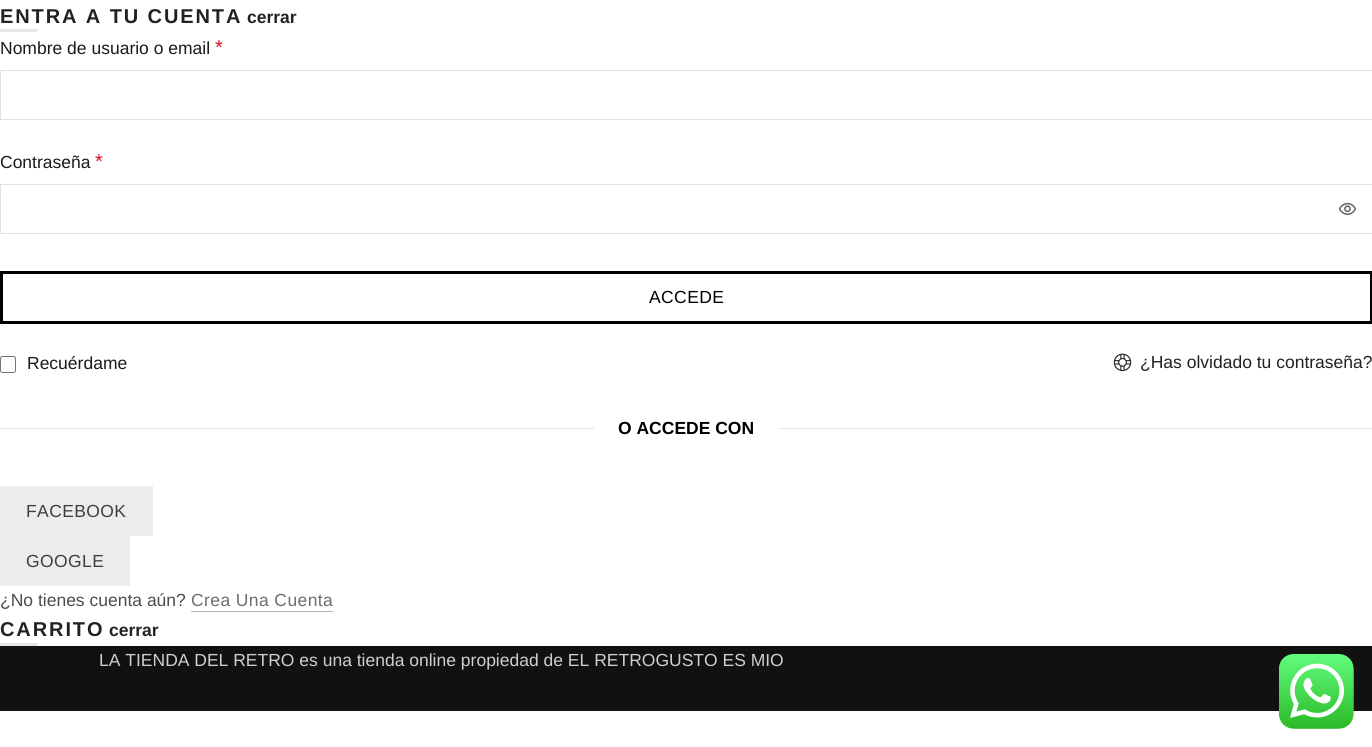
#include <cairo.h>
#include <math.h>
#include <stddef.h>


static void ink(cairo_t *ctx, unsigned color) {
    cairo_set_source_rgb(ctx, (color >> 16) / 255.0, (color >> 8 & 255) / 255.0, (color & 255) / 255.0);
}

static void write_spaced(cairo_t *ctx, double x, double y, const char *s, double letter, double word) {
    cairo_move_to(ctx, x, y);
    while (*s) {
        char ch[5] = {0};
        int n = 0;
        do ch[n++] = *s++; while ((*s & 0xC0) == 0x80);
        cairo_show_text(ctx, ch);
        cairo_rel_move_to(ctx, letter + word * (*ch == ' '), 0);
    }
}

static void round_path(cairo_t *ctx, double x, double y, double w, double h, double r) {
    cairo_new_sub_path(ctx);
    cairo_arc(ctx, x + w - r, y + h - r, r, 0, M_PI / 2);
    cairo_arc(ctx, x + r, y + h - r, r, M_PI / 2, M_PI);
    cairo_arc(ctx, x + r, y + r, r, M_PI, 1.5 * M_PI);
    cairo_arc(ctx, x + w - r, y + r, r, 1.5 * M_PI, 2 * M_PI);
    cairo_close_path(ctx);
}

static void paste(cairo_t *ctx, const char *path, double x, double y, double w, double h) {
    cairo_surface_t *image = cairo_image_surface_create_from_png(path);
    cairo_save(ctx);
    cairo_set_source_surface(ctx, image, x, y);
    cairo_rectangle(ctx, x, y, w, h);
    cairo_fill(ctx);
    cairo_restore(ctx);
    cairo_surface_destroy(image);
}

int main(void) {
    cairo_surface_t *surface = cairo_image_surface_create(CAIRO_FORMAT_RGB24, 1372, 747);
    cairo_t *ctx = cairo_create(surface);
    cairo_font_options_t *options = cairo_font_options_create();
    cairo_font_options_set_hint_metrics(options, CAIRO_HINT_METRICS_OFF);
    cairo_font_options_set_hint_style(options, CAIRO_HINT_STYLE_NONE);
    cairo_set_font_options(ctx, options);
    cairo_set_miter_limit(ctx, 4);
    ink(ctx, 0xFFFFFF);
    cairo_paint(ctx);
    cairo_select_font_face(ctx, "Liberation Sans", CAIRO_FONT_SLANT_NORMAL, CAIRO_FONT_WEIGHT_BOLD);
    cairo_set_font_size(ctx, 20);
    ink(ctx, 0x222222);
    write_spaced(ctx, 0, 23, "ENTRA A TU CUENTA", 1.9, 0);
    ink(ctx, 0xE6E6E6);
    cairo_rectangle(ctx, 0, 29, 38, 3);
    cairo_fill(ctx);
    cairo_set_font_size(ctx, 17.5);
    ink(ctx, 0x222222);
    cairo_move_to(ctx, 247, 23);
    cairo_show_text(ctx, "cerrar");
    cairo_select_font_face(ctx, "Liberation Sans", CAIRO_FONT_SLANT_NORMAL, CAIRO_FONT_WEIGHT_NORMAL);
    ink(ctx, 0x1B1919);
    cairo_move_to(ctx, 0, 54);
    cairo_show_text(ctx, "Nombre de usuario o email");
    cairo_set_font_size(ctx, 20);
    ink(ctx, 0xE01020);
    cairo_move_to(ctx, 215, 54);
    cairo_show_text(ctx, "*");
    cairo_rectangle(ctx, 0.5, 70.5, 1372, 49);
    ink(ctx, 0xE0E0E0);
    cairo_set_line_width(ctx, 1);
    cairo_stroke(ctx);
    cairo_set_font_size(ctx, 17.5);
    ink(ctx, 0x1B1919);
    cairo_move_to(ctx, 0, 168);
    cairo_show_text(ctx, "Contraseña");
    cairo_set_font_size(ctx, 20);
    ink(ctx, 0xE01020);
    cairo_move_to(ctx, 95, 168);
    cairo_show_text(ctx, "*");
    cairo_rectangle(ctx, 0.5, 184.5, 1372, 49);
    ink(ctx, 0xE0E0E0);
    cairo_stroke(ctx);
    paste(ctx, "media/1.png", 1339, 202, 17, 13);
    cairo_rectangle(ctx, 1.5, 272.5, 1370, 50);
    ink(ctx, 0x000000);
    cairo_set_line_width(ctx, 3);
    cairo_stroke(ctx);
    cairo_set_font_size(ctx, 17.5);
    write_spaced(ctx, 649, 303, "ACCEDE", 0.4, 0);
    round_path(ctx, 0.5, 356.5, 15, 16, 2);
    ink(ctx, 0x767676);
    cairo_set_line_width(ctx, 1);
    cairo_stroke(ctx);
    ink(ctx, 0x1B1919);
    cairo_move_to(ctx, 27, 369);
    cairo_show_text(ctx, "Recuérdame");
    paste(ctx, "media/2.png", 1113, 353, 19, 19);
    ink(ctx, 0x222222);
    cairo_move_to(ctx, 1140, 368);
    cairo_show_text(ctx, "¿Has olvidado tu contraseña?");
    ink(ctx, 0xE2E2E2);
    cairo_rectangle(ctx, 0, 428, 594, 1);
    cairo_fill(ctx);
    cairo_select_font_face(ctx, "Liberation Sans", CAIRO_FONT_SLANT_NORMAL, CAIRO_FONT_WEIGHT_BOLD);
    ink(ctx, 0x000000);
    cairo_move_to(ctx, 618, 434);
    cairo_show_text(ctx, "O ACCEDE CON");
    ink(ctx, 0xE2E2E2);
    cairo_rectangle(ctx, 779, 428, 593, 1);
    cairo_fill(ctx);
    ink(ctx, 0xECECEC);
    cairo_rectangle(ctx, 0, 486, 153, 50);
    cairo_fill(ctx);
    cairo_select_font_face(ctx, "Liberation Sans", CAIRO_FONT_SLANT_NORMAL, CAIRO_FONT_WEIGHT_NORMAL);
    ink(ctx, 0x3E3E3E);
    write_spaced(ctx, 26, 517, "FACEBOOK", 0.4, 0);
    ink(ctx, 0xECECEC);
    cairo_rectangle(ctx, 0, 536, 130, 50);
    cairo_fill(ctx);
    ink(ctx, 0x3E3E3E);
    write_spaced(ctx, 26, 567, "GOOGLE", 0.4, 0);
    ink(ctx, 0x4C4C4C);
    cairo_move_to(ctx, 0, 606);
    cairo_show_text(ctx, "¿No tienes cuenta aún?");
    ink(ctx, 0xB5B5B5);
    cairo_rectangle(ctx, 191, 611, 142, 1);
    cairo_fill(ctx);
    ink(ctx, 0x6D6D6D);
    write_spaced(ctx, 191, 606, "Crea Una Cuenta", 0.4, 0);
    cairo_select_font_face(ctx, "Liberation Sans", CAIRO_FONT_SLANT_NORMAL, CAIRO_FONT_WEIGHT_BOLD);
    cairo_set_font_size(ctx, 20);
    ink(ctx, 0x222222);
    write_spaced(ctx, 0, 636, "CARRITO", 1.9, 0);
    ink(ctx, 0xE6E6E6);
    cairo_rectangle(ctx, 0, 643, 38, 3);
    cairo_fill(ctx);
    cairo_set_font_size(ctx, 17.5);
    ink(ctx, 0x222222);
    cairo_move_to(ctx, 109, 636);
    cairo_show_text(ctx, "cerrar");
    ink(ctx, 0x111111);
    cairo_rectangle(ctx, 0, 646, 1372, 65);
    cairo_fill(ctx);
    cairo_select_font_face(ctx, "Liberation Sans", CAIRO_FONT_SLANT_NORMAL, CAIRO_FONT_WEIGHT_NORMAL);
    ink(ctx, 0xCFCFCF);
    cairo_move_to(ctx, 99, 666);
    cairo_show_text(ctx, "LA TIENDA DEL RETRO es una tienda online propiedad de EL RETROGUSTO ES MIO");
    paste(ctx, "media/3.png", 1279, 654, 75, 75);
    cairo_surface_write_to_png(surface, "image.png");
    cairo_font_options_destroy(options);
    cairo_destroy(ctx);
    cairo_surface_destroy(surface);
    return 0;
}
